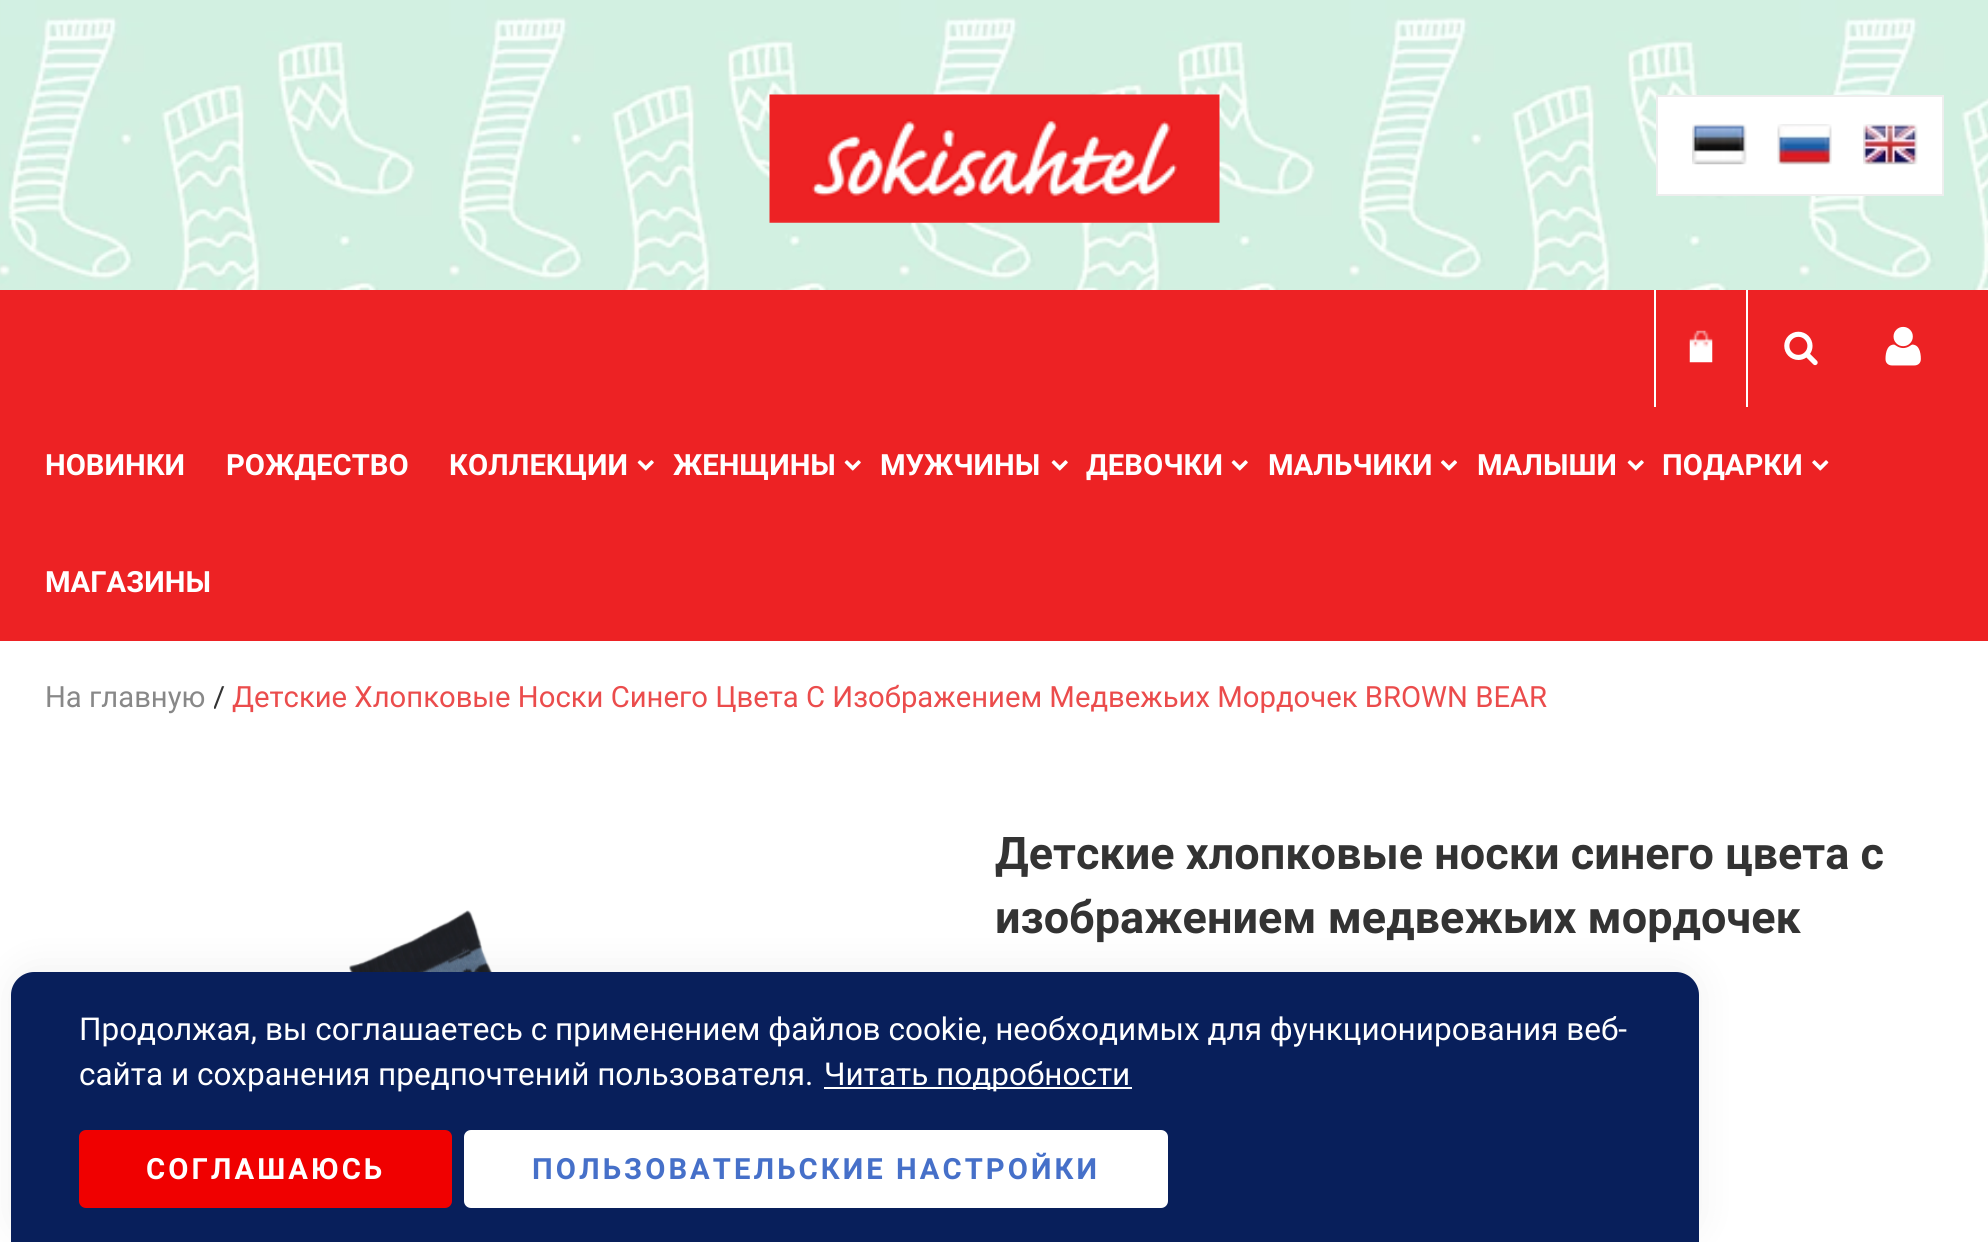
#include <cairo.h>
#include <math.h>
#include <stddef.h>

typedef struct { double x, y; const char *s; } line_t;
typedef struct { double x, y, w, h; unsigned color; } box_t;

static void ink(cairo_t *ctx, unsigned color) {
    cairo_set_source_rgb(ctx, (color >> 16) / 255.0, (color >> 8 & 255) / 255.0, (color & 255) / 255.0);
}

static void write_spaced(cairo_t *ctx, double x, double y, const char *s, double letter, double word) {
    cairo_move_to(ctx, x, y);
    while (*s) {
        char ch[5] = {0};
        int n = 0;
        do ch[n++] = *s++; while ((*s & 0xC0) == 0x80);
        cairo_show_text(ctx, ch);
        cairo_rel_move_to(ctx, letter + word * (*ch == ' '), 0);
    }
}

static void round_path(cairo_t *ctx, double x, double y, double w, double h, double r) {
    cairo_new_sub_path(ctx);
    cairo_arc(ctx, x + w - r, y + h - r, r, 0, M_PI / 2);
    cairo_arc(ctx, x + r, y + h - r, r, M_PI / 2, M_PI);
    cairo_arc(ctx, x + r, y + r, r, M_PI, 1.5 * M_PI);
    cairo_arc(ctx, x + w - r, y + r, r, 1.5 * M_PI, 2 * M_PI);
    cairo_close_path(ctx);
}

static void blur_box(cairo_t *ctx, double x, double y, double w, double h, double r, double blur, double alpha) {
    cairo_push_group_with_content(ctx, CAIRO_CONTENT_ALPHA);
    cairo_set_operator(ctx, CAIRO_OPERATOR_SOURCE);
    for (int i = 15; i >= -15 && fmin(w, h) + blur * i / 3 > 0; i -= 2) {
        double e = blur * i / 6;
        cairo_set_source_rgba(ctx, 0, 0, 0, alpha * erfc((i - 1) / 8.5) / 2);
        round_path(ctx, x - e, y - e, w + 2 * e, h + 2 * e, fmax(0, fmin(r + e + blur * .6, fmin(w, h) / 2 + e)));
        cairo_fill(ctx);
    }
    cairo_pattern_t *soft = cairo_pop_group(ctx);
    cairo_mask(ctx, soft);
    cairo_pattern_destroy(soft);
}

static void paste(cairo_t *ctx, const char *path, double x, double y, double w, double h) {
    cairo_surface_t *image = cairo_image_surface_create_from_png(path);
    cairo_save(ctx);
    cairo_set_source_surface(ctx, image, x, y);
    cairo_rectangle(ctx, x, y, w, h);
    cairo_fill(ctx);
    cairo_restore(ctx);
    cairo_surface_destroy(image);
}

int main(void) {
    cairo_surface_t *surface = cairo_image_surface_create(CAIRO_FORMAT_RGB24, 1988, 1242);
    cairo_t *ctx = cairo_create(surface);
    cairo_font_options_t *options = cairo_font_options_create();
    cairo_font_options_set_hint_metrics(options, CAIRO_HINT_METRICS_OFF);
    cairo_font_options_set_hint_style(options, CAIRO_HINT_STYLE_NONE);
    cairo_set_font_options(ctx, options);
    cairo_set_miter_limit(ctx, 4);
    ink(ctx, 0xFFFFFF);
    cairo_paint(ctx);
    paste(ctx, "media/1.png", 0, 0, 1988, 290);
    paste(ctx, "media/2.png", 769, 94, 451, 129);
    ink(ctx, 0xFFFFFF);
    cairo_rectangle(ctx, 1657, 96, 286, 99);
    cairo_fill_preserve(ctx);
    ink(ctx, 0xEEEEEE);
    cairo_stroke(ctx);
    paste(ctx, "media/3.png", 1692, 124, 55, 41);
    paste(ctx, "media/4.png", 1777, 124, 55, 41);
    paste(ctx, "media/5.png", 1863, 124, 55, 41);
    {
        static const box_t items[] = {
            {0, 290, 1988, 351, 0xED2224},
            {1746, 290, 2, 117, 0xFFFFFF},
            {1654, 290, 2, 117, 0xFFFFFF},
        };
        for (size_t i = 0; i < sizeof items / sizeof *items; i++) {
            ink(ctx, items[i].color);
            cairo_rectangle(ctx, items[i].x, items[i].y, items[i].w, items[i].h);
            cairo_fill(ctx);
        }
    }
    paste(ctx, "media/6.png", 1689, 330, 24, 33);
    paste(ctx, "media/7.png", 1784, 331, 34, 35);
    paste(ctx, "media/8.png", 1885, 326, 36, 40);
    cairo_select_font_face(ctx, "Roboto", CAIRO_FONT_SLANT_NORMAL, CAIRO_FONT_WEIGHT_BOLD);
    cairo_set_font_size(ctx, 29.25);
    {
        static const line_t items[] = {
            {45, 475, "НОВИНКИ"},
            {226, 475, "РОЖДЕСТВO"},
            {449, 475, "КОЛЛЕКЦИИ"},
        };
        for (size_t i = 0; i < sizeof items / sizeof *items; i++) {
            cairo_move_to(ctx, items[i].x, items[i].y);
            cairo_show_text(ctx, items[i].s);
        }
    }
    paste(ctx, "media/9.png", 637, 460, 17, 11);
    cairo_move_to(ctx, 673, 475);
    cairo_show_text(ctx, "ЖЕНЩИНЫ");
    paste(ctx, "media/9.png", 844, 460, 17, 11);
    cairo_move_to(ctx, 880, 475);
    cairo_show_text(ctx, "МУЖЧИНЫ");
    paste(ctx, "media/9.png", 1051, 460, 17, 11);
    cairo_move_to(ctx, 1086, 475);
    cairo_show_text(ctx, "ДЕВОЧКИ");
    paste(ctx, "media/9.png", 1231, 460, 17, 11);
    cairo_move_to(ctx, 1268, 475);
    cairo_show_text(ctx, "МАЛЬЧИКИ");
    paste(ctx, "media/10.png", 1440, 460, 18, 11);
    cairo_move_to(ctx, 1477, 475);
    cairo_show_text(ctx, "МАЛЫШИ");
    paste(ctx, "media/9.png", 1627, 460, 17, 11);
    cairo_move_to(ctx, 1662, 475);
    cairo_show_text(ctx, "ПОДАРКИ");
    paste(ctx, "media/11.png", 1812, 460, 17, 11);
    cairo_move_to(ctx, 45, 592);
    cairo_show_text(ctx, "МАГАЗИНЫ");
    cairo_select_font_face(ctx, "Roboto", CAIRO_FONT_SLANT_NORMAL, CAIRO_FONT_WEIGHT_NORMAL);
    ink(ctx, 0x888888);
    cairo_move_to(ctx, 45, 707);
    cairo_show_text(ctx, "На главную");
    cairo_save(ctx);
    cairo_rectangle(ctx, 214, 680, 11, 33);
    cairo_clip(ctx);
    ink(ctx, 0x333333);
    cairo_move_to(ctx, 213, 707);
    cairo_show_text(ctx, "/");
    cairo_restore(ctx);
    ink(ctx, 0xEB4C4C);
    cairo_move_to(ctx, 232, 707);
    cairo_show_text(ctx, "Детские Хлопковые Носки Синего Цвета С Изображением Медвежьих Мордочек BROWN BEAR");
    paste(ctx, "media/12.png", 349, 910, 488, 62);
    cairo_select_font_face(ctx, "Roboto", CAIRO_FONT_SLANT_NORMAL, CAIRO_FONT_WEIGHT_BOLD);
    cairo_set_font_size(ctx, 45);
    ink(ctx, 0x333333);
    cairo_move_to(ctx, 995, 869);
    cairo_show_text(ctx, "Детские хлопковые носки синего цвета с");
    cairo_move_to(ctx, 995, 933);
    cairo_show_text(ctx, "изображением медвежьих мордочек");
    ink(ctx, 0x000000);
    blur_box(ctx, 11, 968, 1688, 270, 23, 20, 0.06);
    ink(ctx, 0x081F5B);
    cairo_new_path(ctx);
    cairo_move_to(ctx, 34, 972);
    cairo_line_to(ctx, 1676, 972);
    cairo_curve_to(ctx, 1688.5, 972, 1699, 982.5, 1699, 995);
    cairo_line_to(ctx, 1699, 1242);
    cairo_line_to(ctx, 11, 1242);
    cairo_line_to(ctx, 11, 995);
    cairo_curve_to(ctx, 11, 982.5, 21.5, 972, 34, 972);
    cairo_close_path(ctx);
    cairo_fill(ctx);
    cairo_select_font_face(ctx, "Roboto", CAIRO_FONT_SLANT_NORMAL, CAIRO_FONT_WEIGHT_NORMAL);
    cairo_set_font_size(ctx, 31.5);
    ink(ctx, 0xFFFFFF);
    cairo_move_to(ctx, 79, 1040);
    cairo_show_text(ctx, "Продолжая, вы соглашаетесь с применением файлов cookie, необходимых для функционирования веб-");
    cairo_move_to(ctx, 79, 1085);
    cairo_show_text(ctx, "сайта и сохранения предпочтений пользователя.");
    cairo_rectangle(ctx, 824, 1087, 308, 2);
    cairo_fill(ctx);
    cairo_move_to(ctx, 824, 1085);
    cairo_show_text(ctx, "Читать подробности");
    ink(ctx, 0xF00000);
    round_path(ctx, 79, 1130, 373, 78, 7);
    cairo_fill(ctx);
    cairo_select_font_face(ctx, "Roboto", CAIRO_FONT_SLANT_NORMAL, CAIRO_FONT_WEIGHT_BOLD);
    cairo_set_font_size(ctx, 29.25);
    ink(ctx, 0xFFFFFF);
    write_spaced(ctx, 146, 1179, "СОГЛАШАЮСЬ", 3.05, 0);
    round_path(ctx, 464, 1130, 704, 78, 7);
    cairo_fill(ctx);
    ink(ctx, 0x4670C9);
    write_spaced(ctx, 532, 1179, "ПОЛЬЗОВАТЕЛЬСКИЕ НАСТРОЙКИ", 3.05, 0);
    cairo_surface_write_to_png(surface, "image.png");
    cairo_font_options_destroy(options);
    cairo_destroy(ctx);
    cairo_surface_destroy(surface);
    return 0;
}
